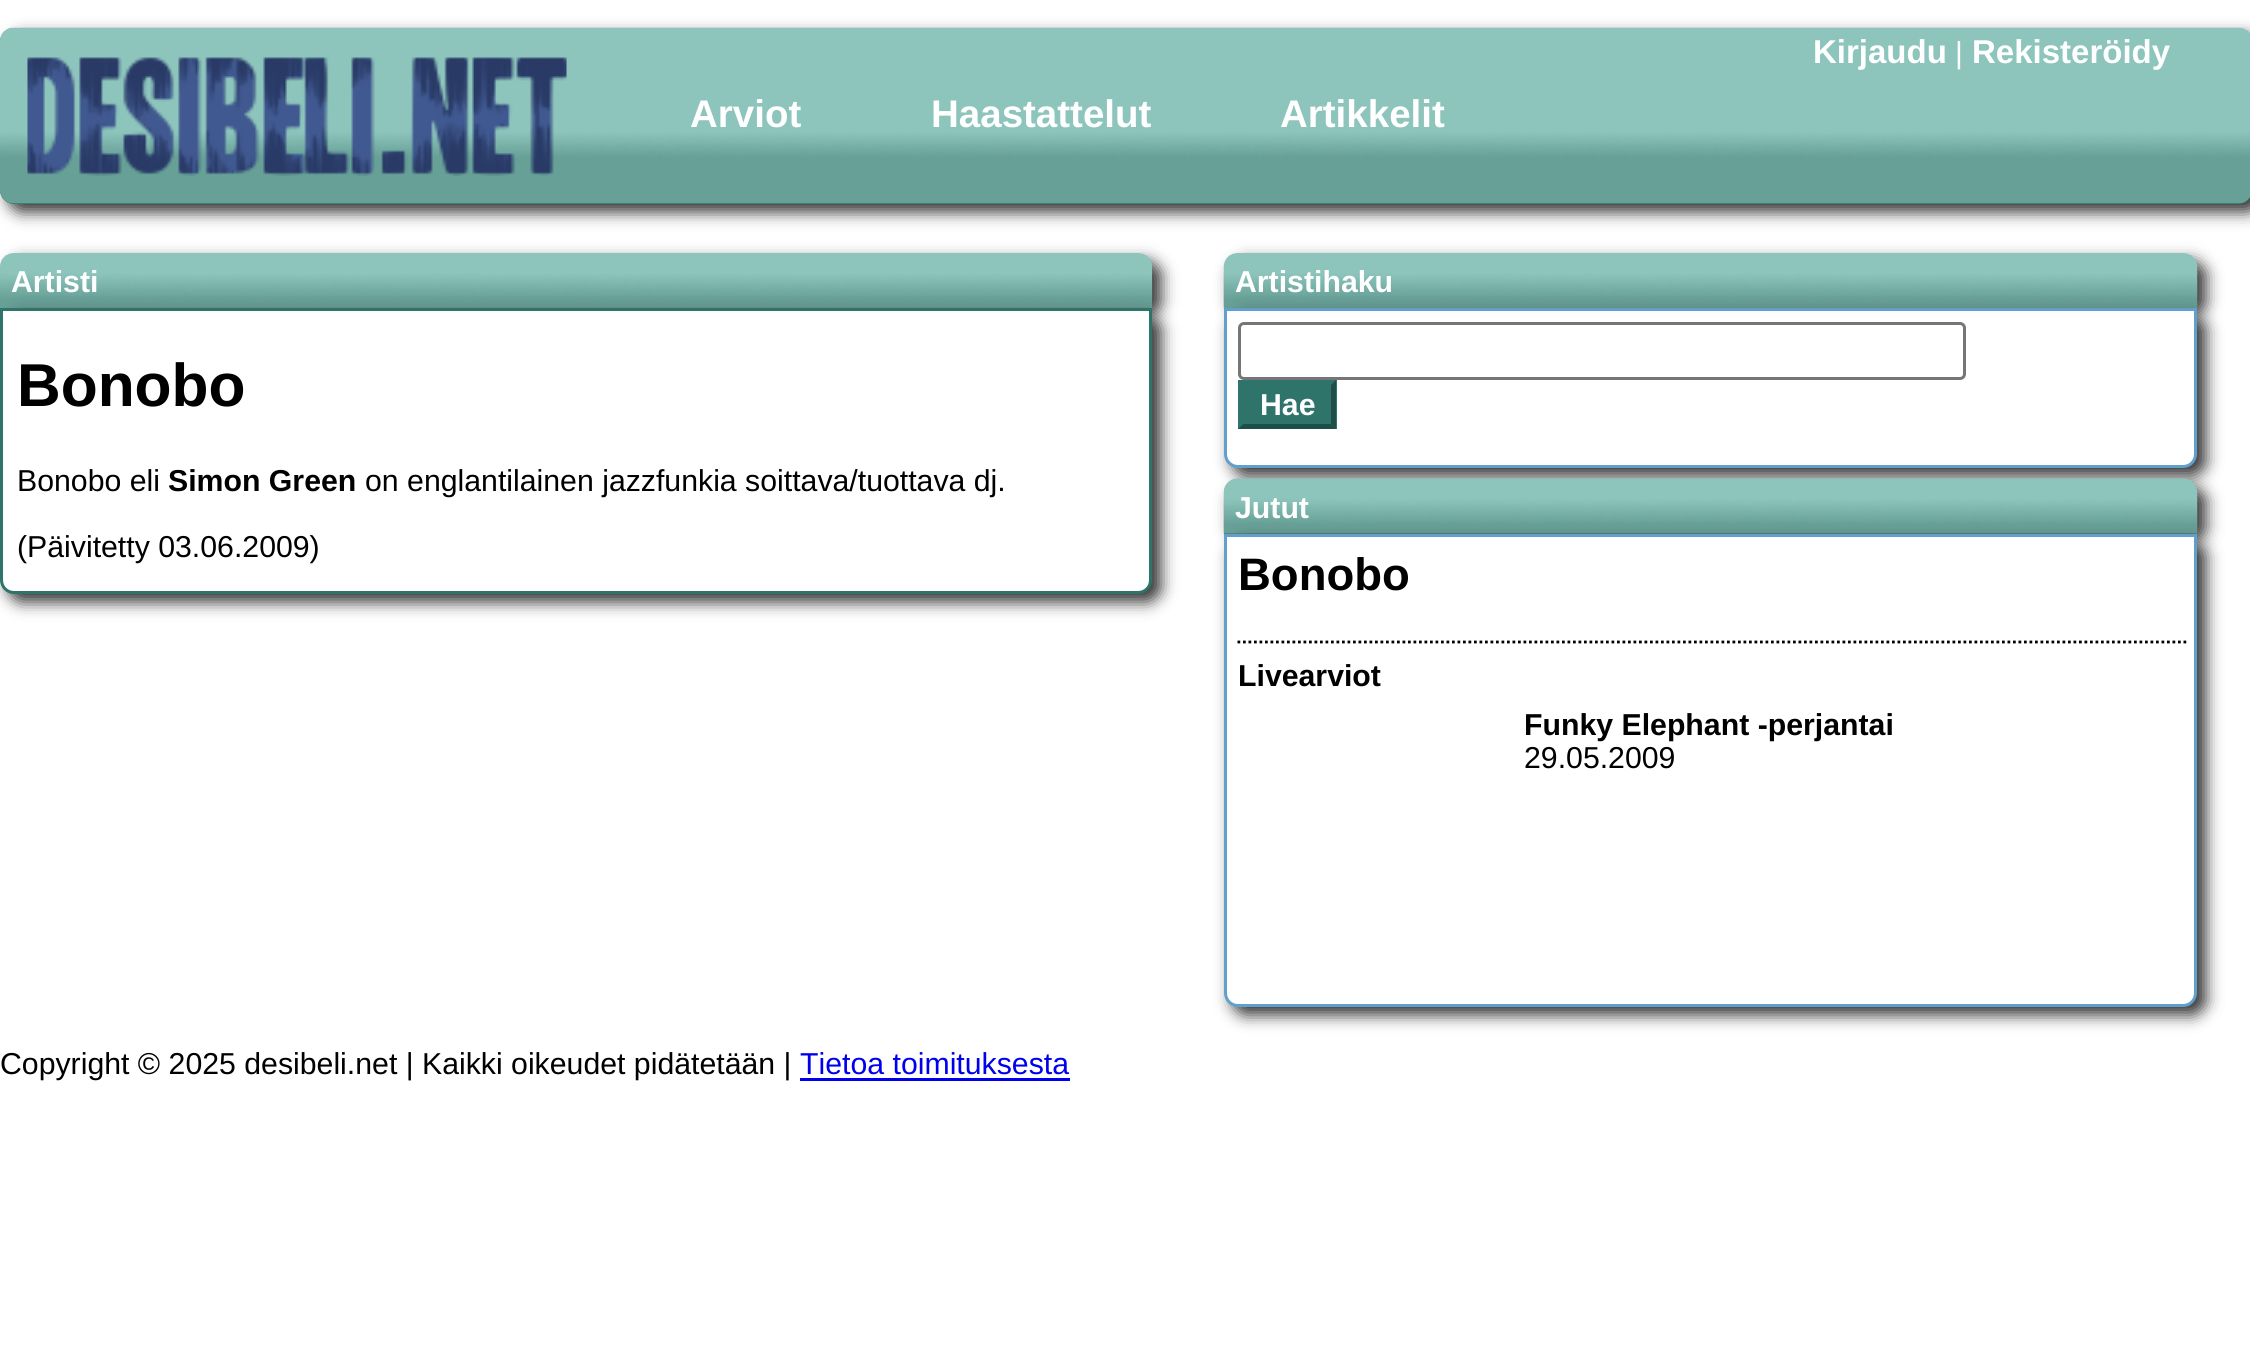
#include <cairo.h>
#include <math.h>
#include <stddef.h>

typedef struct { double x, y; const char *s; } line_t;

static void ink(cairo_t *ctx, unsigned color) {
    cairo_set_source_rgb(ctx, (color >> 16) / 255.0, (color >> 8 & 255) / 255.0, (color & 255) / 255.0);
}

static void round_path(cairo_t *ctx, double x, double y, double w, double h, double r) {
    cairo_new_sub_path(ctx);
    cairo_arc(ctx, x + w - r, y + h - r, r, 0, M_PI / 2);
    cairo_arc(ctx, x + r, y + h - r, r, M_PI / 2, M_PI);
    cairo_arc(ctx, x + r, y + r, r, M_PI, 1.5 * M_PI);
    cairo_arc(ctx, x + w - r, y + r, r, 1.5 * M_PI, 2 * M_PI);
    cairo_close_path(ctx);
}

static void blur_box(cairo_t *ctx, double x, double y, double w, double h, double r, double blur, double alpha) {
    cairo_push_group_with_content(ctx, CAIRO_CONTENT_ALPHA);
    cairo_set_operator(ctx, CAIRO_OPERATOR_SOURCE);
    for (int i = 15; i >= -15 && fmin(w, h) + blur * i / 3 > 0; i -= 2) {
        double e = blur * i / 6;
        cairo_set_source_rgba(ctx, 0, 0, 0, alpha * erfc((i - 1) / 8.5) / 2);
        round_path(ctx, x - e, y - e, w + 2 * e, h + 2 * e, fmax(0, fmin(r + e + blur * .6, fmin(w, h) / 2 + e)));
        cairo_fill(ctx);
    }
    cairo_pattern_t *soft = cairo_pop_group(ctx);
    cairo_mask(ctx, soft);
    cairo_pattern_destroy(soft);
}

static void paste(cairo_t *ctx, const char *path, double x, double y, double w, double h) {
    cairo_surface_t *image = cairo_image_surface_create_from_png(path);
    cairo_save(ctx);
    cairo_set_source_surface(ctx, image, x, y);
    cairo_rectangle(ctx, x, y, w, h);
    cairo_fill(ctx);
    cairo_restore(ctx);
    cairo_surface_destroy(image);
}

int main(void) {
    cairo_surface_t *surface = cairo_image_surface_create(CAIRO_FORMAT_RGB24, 2250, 1350);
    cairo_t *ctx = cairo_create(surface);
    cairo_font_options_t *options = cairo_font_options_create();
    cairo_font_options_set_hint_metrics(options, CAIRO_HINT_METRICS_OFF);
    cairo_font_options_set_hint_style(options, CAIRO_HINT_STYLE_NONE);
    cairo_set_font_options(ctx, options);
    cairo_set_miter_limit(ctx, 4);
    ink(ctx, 0xFFFFFF);
    cairo_paint(ctx);
    ink(ctx, 0x333333);
    blur_box(ctx, 8, 36, 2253, 176, 14, 8, 1);
    ink(ctx, 0x2E746A);
    round_path(ctx, 0, 28, 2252, 176, 14);
    cairo_fill(ctx);
    paste(ctx, "media/1.png", 0, 27, 2250, 177);
    paste(ctx, "media/2.png", 27, 57, 540, 119);
    cairo_select_font_face(ctx, "Liberation Sans", CAIRO_FONT_SLANT_NORMAL, CAIRO_FONT_WEIGHT_BOLD);
    cairo_set_font_size(ctx, 38.5);
    ink(ctx, 0xFFFFFF);
    {
        static const line_t items[] = {
            {690, 127, "Arviot"},
            {931, 127, "Haastattelut"},
            {1280, 127, "Artikkelit"},
        };
        for (size_t i = 0; i < sizeof items / sizeof *items; i++) {
            cairo_move_to(ctx, items[i].x, items[i].y);
            cairo_show_text(ctx, items[i].s);
        }
    }
    cairo_set_font_size(ctx, 33);
    cairo_move_to(ctx, 1813, 63);
    cairo_show_text(ctx, "Kirjaudu");
    cairo_select_font_face(ctx, "Liberation Sans", CAIRO_FONT_SLANT_NORMAL, CAIRO_FONT_WEIGHT_NORMAL);
    cairo_set_font_size(ctx, 30.25);
    cairo_move_to(ctx, 1955, 63);
    cairo_show_text(ctx, "|");
    cairo_select_font_face(ctx, "Liberation Sans", CAIRO_FONT_SLANT_NORMAL, CAIRO_FONT_WEIGHT_BOLD);
    cairo_set_font_size(ctx, 33);
    cairo_move_to(ctx, 1972, 63);
    cairo_show_text(ctx, "Rekisteröidy");
    ink(ctx, 0x333333);
    blur_box(ctx, 8, 261, 1153, 55, 14, 8, 1);
    paste(ctx, "media/3.png", 0, 253, 1153, 55);
    cairo_set_font_size(ctx, 30.25);
    ink(ctx, 0xFFFFFF);
    cairo_move_to(ctx, 11, 292);
    cairo_show_text(ctx, "Artisti");
    ink(ctx, 0x333333);
    blur_box(ctx, 8, 316, 1153, 286, 14, 8, 1);
    ink(ctx, 0xFFFFFF);
    cairo_new_path(ctx);
    cairo_move_to(ctx, 1.5, 309.5);
    cairo_line_to(ctx, 1150.5, 309.5);
    cairo_line_to(ctx, 1150.5, 580);
    cairo_curve_to(ctx, 1150.5, 587, 1145, 592.5, 1138, 592.5);
    cairo_line_to(ctx, 14, 592.5);
    cairo_curve_to(ctx, 7, 592.5, 1.5, 587, 1.5, 580);
    cairo_close_path(ctx);
    cairo_fill_preserve(ctx);
    ink(ctx, 0x2E746A);
    cairo_set_line_width(ctx, 3);
    cairo_stroke(ctx);
    cairo_set_font_size(ctx, 60.5);
    ink(ctx, 0x000000);
    cairo_move_to(ctx, 17, 406);
    cairo_show_text(ctx, "Bonobo");
    cairo_select_font_face(ctx, "Liberation Sans", CAIRO_FONT_SLANT_NORMAL, CAIRO_FONT_WEIGHT_NORMAL);
    cairo_set_font_size(ctx, 30.25);
    cairo_move_to(ctx, 17, 491);
    cairo_show_text(ctx, "Bonobo eli");
    cairo_select_font_face(ctx, "Liberation Sans", CAIRO_FONT_SLANT_NORMAL, CAIRO_FONT_WEIGHT_BOLD);
    cairo_move_to(ctx, 168, 491);
    cairo_show_text(ctx, "Simon Green");
    cairo_select_font_face(ctx, "Liberation Sans", CAIRO_FONT_SLANT_NORMAL, CAIRO_FONT_WEIGHT_NORMAL);
    cairo_move_to(ctx, 365, 491);
    cairo_show_text(ctx, "on englantilainen jazzfunkia soittava/tuottava dj.");
    cairo_move_to(ctx, 17, 557);
    cairo_show_text(ctx, "(Päivitetty 03.06.2009)");
    ink(ctx, 0x333333);
    blur_box(ctx, 1232, 261, 974, 55, 14, 8, 1);
    paste(ctx, "media/4.png", 1223, 253, 975, 55);
    blur_box(ctx, 1232, 316, 974, 160, 14, 8, 1);
    cairo_select_font_face(ctx, "Liberation Sans", CAIRO_FONT_SLANT_NORMAL, CAIRO_FONT_WEIGHT_BOLD);
    ink(ctx, 0xFFFFFF);
    cairo_move_to(ctx, 1235, 292);
    cairo_show_text(ctx, "Artistihaku");
    cairo_new_path(ctx);
    cairo_move_to(ctx, 1225.5, 309.5);
    cairo_line_to(ctx, 2195.5, 309.5);
    cairo_line_to(ctx, 2195.5, 454);
    cairo_curve_to(ctx, 2195.5, 461, 2190, 466.5, 2183, 466.5);
    cairo_line_to(ctx, 1238, 466.5);
    cairo_curve_to(ctx, 1231, 466.5, 1225.5, 461, 1225.5, 454);
    cairo_close_path(ctx);
    cairo_fill_preserve(ctx);
    ink(ctx, 0x619FCD);
    cairo_stroke(ctx);
    round_path(ctx, 1239.5, 323.5, 725, 55, 4.5);
    ink(ctx, 0x767676);
    cairo_stroke(ctx);
    ink(ctx, 0x2E746A);
    cairo_rectangle(ctx, 1238, 380, 99, 49);
    cairo_fill(ctx);
    ink(ctx, 0x1F4D47);
    cairo_new_path(ctx);
    cairo_move_to(ctx, 1336, 380);
    cairo_line_to(ctx, 1336, 429);
    cairo_line_to(ctx, 1331, 424);
    cairo_line_to(ctx, 1331, 385);
    cairo_close_path(ctx);
    cairo_fill(ctx);
    cairo_new_path(ctx);
    cairo_move_to(ctx, 1336, 429);
    cairo_line_to(ctx, 1238, 429);
    cairo_line_to(ctx, 1243, 424);
    cairo_line_to(ctx, 1331, 424);
    cairo_close_path(ctx);
    cairo_fill(ctx);
    ink(ctx, 0x2E746A);
    cairo_new_path(ctx);
    cairo_move_to(ctx, 1238, 429);
    cairo_line_to(ctx, 1238, 380);
    cairo_line_to(ctx, 1243, 385);
    cairo_line_to(ctx, 1243, 424);
    cairo_close_path(ctx);
    cairo_fill(ctx);
    ink(ctx, 0xFFFFFF);
    cairo_move_to(ctx, 1260, 415);
    cairo_show_text(ctx, "Hae");
    ink(ctx, 0x333333);
    blur_box(ctx, 1232, 487, 974, 55, 14, 8, 1);
    ink(ctx, 0x2E746A);
    cairo_new_path(ctx);
    cairo_move_to(ctx, 1238, 479);
    cairo_line_to(ctx, 2183, 479);
    cairo_curve_to(ctx, 2190.5, 479, 2197, 485.5, 2197, 493);
    cairo_line_to(ctx, 2197, 534);
    cairo_line_to(ctx, 1224, 534);
    cairo_line_to(ctx, 1224, 493);
    cairo_curve_to(ctx, 1224, 485.5, 1230.5, 479, 1238, 479);
    cairo_close_path(ctx);
    cairo_fill(ctx);
    paste(ctx, "media/5.png", 1223, 478, 975, 56);
    ink(ctx, 0x333333);
    blur_box(ctx, 1232, 542, 974, 473, 14, 8, 1);
    ink(ctx, 0xFFFFFF);
    cairo_move_to(ctx, 1235, 518);
    cairo_show_text(ctx, "Jutut");
    cairo_new_path(ctx);
    cairo_move_to(ctx, 1225.5, 535.5);
    cairo_line_to(ctx, 2195.5, 535.5);
    cairo_line_to(ctx, 2195.5, 993);
    cairo_curve_to(ctx, 2195.5, 1000, 2190, 1005.5, 2183, 1005.5);
    cairo_line_to(ctx, 1238, 1005.5);
    cairo_curve_to(ctx, 1231, 1005.5, 1225.5, 1000, 1225.5, 993);
    cairo_close_path(ctx);
    cairo_fill_preserve(ctx);
    ink(ctx, 0x619FCD);
    cairo_stroke(ctx);
    cairo_set_font_size(ctx, 45.5);
    ink(ctx, 0x000000);
    cairo_move_to(ctx, 1238, 590);
    cairo_show_text(ctx, "Bonobo");
    cairo_new_path(ctx);
    cairo_move_to(ctx, 1237.5, 642);
    cairo_line_to(ctx, 2189, 642);
    cairo_set_line_width(ctx, 2.8);
    cairo_set_dash(ctx, (double[]){2.75, 2.75}, 2, 0);
    cairo_stroke(ctx);
    cairo_set_font_size(ctx, 30.25);
    cairo_move_to(ctx, 1238, 686);
    cairo_show_text(ctx, "Livearviot");
    cairo_move_to(ctx, 1524, 735);
    cairo_show_text(ctx, "Funky Elephant -perjantai");
    cairo_select_font_face(ctx, "Liberation Sans", CAIRO_FONT_SLANT_NORMAL, CAIRO_FONT_WEIGHT_NORMAL);
    cairo_move_to(ctx, 1524, 768);
    cairo_show_text(ctx, "29.05.2009");
    cairo_move_to(ctx, 0, 1074);
    cairo_show_text(ctx, "Copyright © 2025 desibeli.net | Kaikki oikeudet pidätetään |");
    ink(ctx, 0x0000EE);
    cairo_move_to(ctx, 800, 1074);
    cairo_show_text(ctx, "Tietoa toimituksesta");
    cairo_rectangle(ctx, 800, 1078, 270, 3);
    cairo_fill(ctx);
    cairo_surface_write_to_png(surface, "image.png");
    cairo_font_options_destroy(options);
    cairo_destroy(ctx);
    cairo_surface_destroy(surface);
    return 0;
}
